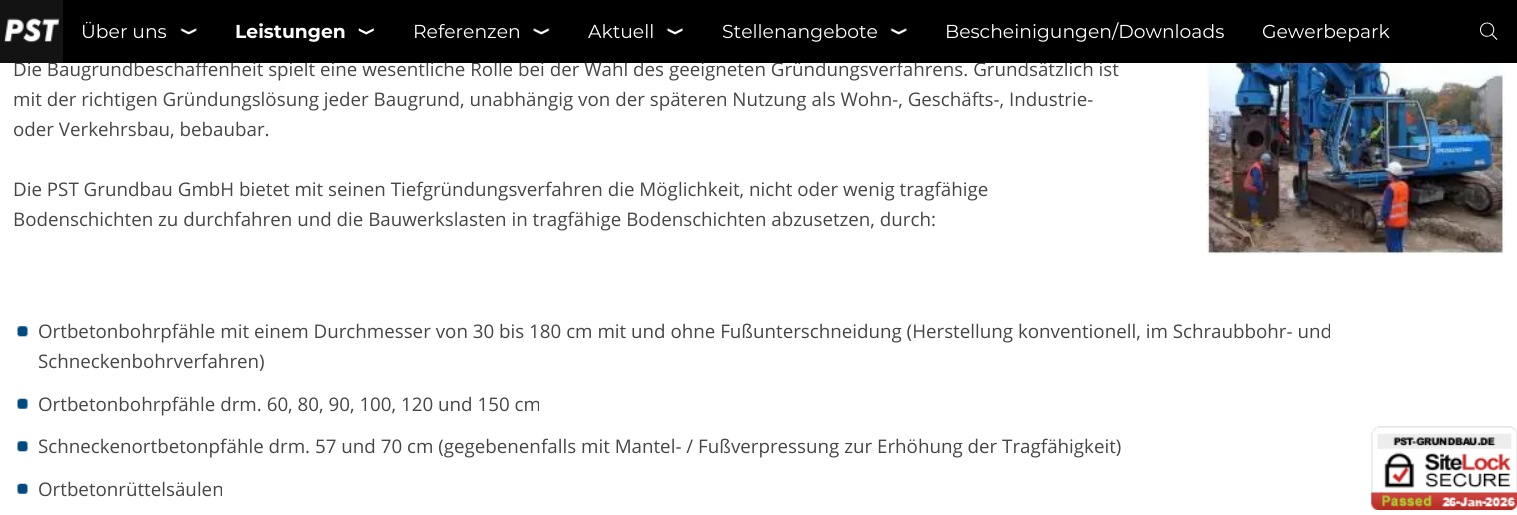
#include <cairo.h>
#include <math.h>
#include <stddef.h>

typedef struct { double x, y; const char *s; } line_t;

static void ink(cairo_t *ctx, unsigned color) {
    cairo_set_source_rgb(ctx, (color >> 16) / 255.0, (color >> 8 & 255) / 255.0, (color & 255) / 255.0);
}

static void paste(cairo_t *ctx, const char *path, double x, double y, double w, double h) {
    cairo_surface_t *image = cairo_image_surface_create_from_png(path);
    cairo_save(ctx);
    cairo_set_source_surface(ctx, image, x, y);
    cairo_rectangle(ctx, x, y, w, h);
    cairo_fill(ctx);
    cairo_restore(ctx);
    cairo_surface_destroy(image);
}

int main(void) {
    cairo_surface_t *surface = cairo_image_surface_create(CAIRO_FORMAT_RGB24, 1517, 515);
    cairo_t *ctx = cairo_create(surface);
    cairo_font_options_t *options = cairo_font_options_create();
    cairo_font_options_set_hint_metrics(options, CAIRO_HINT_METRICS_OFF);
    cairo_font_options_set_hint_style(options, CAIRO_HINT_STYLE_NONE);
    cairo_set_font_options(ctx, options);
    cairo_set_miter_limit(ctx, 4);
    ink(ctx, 0xFFFFFF);
    cairo_paint(ctx);
    cairo_select_font_face(ctx, "Open Sans", CAIRO_FONT_SLANT_NORMAL, CAIRO_FONT_WEIGHT_NORMAL);
    cairo_set_font_size(ctx, 18.75);
    ink(ctx, 0x464646);
    cairo_move_to(ctx, 13, 76);
    cairo_show_text(ctx, "Die Baugrundbeschaffenheit spielt eine wesentliche Rolle bei der Wahl des geeigneten Gründungsverfahrens. Grundsätzlich ist");
    ink(ctx, 0x000000);
    cairo_rectangle(ctx, 63, 0, 1454, 63);
    cairo_fill(ctx);
    ink(ctx, 0x131313);
    cairo_rectangle(ctx, 0, 0, 63, 63);
    cairo_fill(ctx);
    paste(ctx, "media/1.png", 3, 18, 57, 25);
    paste(ctx, "media/2.png", 180, 28, 17, 7);
    cairo_select_font_face(ctx, "Montserrat", CAIRO_FONT_SLANT_NORMAL, CAIRO_FONT_WEIGHT_NORMAL);
    ink(ctx, 0xFFFFFF);
    cairo_move_to(ctx, 81, 38);
    cairo_show_text(ctx, "Über uns");
    paste(ctx, "media/3.png", 358, 28, 16, 7);
    cairo_select_font_face(ctx, "Montserrat", CAIRO_FONT_SLANT_NORMAL, CAIRO_FONT_WEIGHT_BOLD);
    cairo_move_to(ctx, 235, 38);
    cairo_show_text(ctx, "Leistungen");
    paste(ctx, "media/4.png", 533, 28, 17, 7);
    cairo_select_font_face(ctx, "Montserrat", CAIRO_FONT_SLANT_NORMAL, CAIRO_FONT_WEIGHT_NORMAL);
    cairo_move_to(ctx, 413, 38);
    cairo_show_text(ctx, "Referenzen");
    paste(ctx, "media/5.png", 666, 28, 17, 7);
    cairo_move_to(ctx, 588, 38);
    cairo_show_text(ctx, "Aktuell");
    paste(ctx, "media/2.png", 890, 28, 17, 7);
    {
        static const line_t items[] = {
            {722, 38, "Stellenangebote"},
            {945, 38, "Bescheinigungen/Downloads"},
            {1262, 38, "Gewerbepark"},
        };
        for (size_t i = 0; i < sizeof items / sizeof *items; i++) {
            cairo_move_to(ctx, items[i].x, items[i].y);
            cairo_show_text(ctx, items[i].s);
        }
    }
    paste(ctx, "media/6.png", 1480, 22, 18, 18);
    cairo_select_font_face(ctx, "Open Sans", CAIRO_FONT_SLANT_NORMAL, CAIRO_FONT_WEIGHT_NORMAL);
    ink(ctx, 0x464646);
    {
        static const line_t items[] = {
            {13, 106, "mit der richtigen Gründungslösung jeder Baugrund, unabhängig von der späteren Nutzung als Wohn-, Geschäfts-, Industrie-"},
            {13, 136, "oder Verkehrsbau, bebaubar."},
            {13, 196, "Die PST Grundbau GmbH bietet mit seinen Tiefgründungsverfahren die Möglichkeit, nicht oder wenig tragfähige"},
            {13, 226, "Bodenschichten zu durchfahren und die Bauwerkslasten in tragfähige Bodenschichten abzusetzen, durch:"},
        };
        for (size_t i = 0; i < sizeof items / sizeof *items; i++) {
            cairo_move_to(ctx, items[i].x, items[i].y);
            cairo_show_text(ctx, items[i].s);
        }
    }
    paste(ctx, "media/7.png", 1206, 63, 299, 192);
    paste(ctx, "media/8.png", 17, 326, 11, 11);
    cairo_move_to(ctx, 38, 338);
    cairo_show_text(ctx, "Ortbetonbohrpfähle mit einem Durchmesser von 30 bis 180 cm mit und ohne Fußunterschneidung (Herstellung konventionell, im Schraubbohr- und");
    cairo_move_to(ctx, 38, 368);
    cairo_show_text(ctx, "Schneckenbohrverfahren)");
    paste(ctx, "media/9.png", 17, 398, 11, 11);
    cairo_move_to(ctx, 38, 411);
    cairo_show_text(ctx, "Ortbetonbohrpfähle drm. 60, 80, 90, 100, 120 und 150 cm");
    paste(ctx, "media/8.png", 17, 441, 11, 11);
    cairo_move_to(ctx, 38, 453);
    cairo_show_text(ctx, "Schneckenortbetonpfähle drm. 57 und 70 cm (gegebenenfalls mit Mantel- / Fußverpressung zur Erhöhung der Tragfähigkeit)");
    paste(ctx, "media/9.png", 17, 483, 11, 11);
    cairo_move_to(ctx, 38, 496);
    cairo_show_text(ctx, "Ortbetonrüttelsäulen");
    paste(ctx, "media/10.png", 1371, 426, 146, 84);
    cairo_surface_write_to_png(surface, "image.png");
    cairo_font_options_destroy(options);
    cairo_destroy(ctx);
    cairo_surface_destroy(surface);
    return 0;
}
